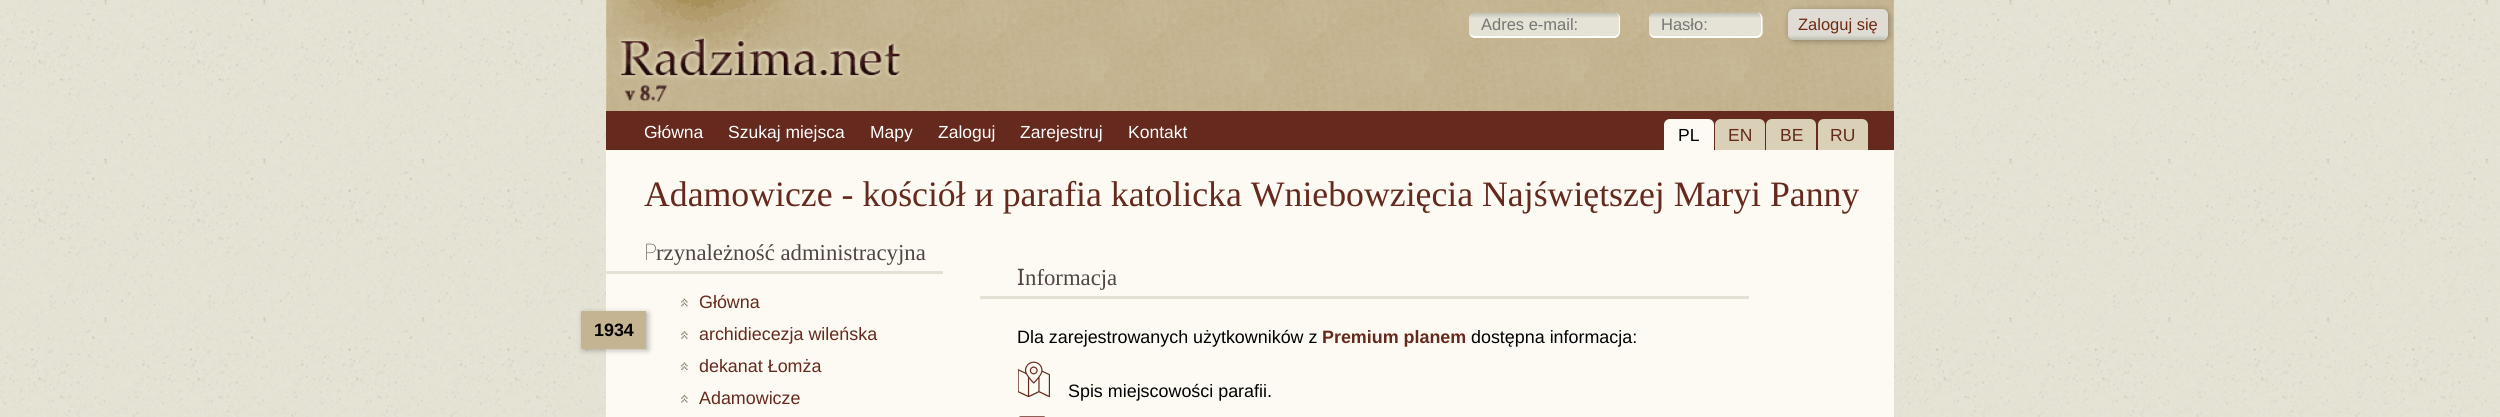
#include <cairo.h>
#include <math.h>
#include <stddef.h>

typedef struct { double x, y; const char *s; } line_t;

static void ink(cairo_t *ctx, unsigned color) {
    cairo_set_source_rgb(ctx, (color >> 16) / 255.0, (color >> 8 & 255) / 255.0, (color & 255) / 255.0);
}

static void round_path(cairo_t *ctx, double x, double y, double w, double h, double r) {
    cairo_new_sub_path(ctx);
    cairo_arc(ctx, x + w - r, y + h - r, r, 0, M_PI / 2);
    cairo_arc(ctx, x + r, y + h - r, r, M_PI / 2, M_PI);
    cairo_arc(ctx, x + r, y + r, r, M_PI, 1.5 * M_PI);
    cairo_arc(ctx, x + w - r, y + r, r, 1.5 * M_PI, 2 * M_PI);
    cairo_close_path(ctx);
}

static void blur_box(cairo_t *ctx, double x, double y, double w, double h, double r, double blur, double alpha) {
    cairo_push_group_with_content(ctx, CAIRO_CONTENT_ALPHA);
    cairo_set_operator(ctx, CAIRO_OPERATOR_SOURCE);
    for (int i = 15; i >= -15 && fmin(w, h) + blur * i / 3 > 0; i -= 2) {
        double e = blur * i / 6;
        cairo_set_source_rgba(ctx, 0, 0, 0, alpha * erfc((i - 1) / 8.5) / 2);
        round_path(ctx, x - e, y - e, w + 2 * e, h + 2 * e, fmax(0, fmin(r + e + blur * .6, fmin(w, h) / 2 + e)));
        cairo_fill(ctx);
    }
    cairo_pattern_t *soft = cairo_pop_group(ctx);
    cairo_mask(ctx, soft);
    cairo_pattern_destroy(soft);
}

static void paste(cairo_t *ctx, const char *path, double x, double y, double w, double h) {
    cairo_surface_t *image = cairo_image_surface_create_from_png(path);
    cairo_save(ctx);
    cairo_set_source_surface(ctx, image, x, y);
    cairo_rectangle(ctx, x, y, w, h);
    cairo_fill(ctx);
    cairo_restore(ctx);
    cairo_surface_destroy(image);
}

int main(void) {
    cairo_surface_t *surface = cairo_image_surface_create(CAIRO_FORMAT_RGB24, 2500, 417);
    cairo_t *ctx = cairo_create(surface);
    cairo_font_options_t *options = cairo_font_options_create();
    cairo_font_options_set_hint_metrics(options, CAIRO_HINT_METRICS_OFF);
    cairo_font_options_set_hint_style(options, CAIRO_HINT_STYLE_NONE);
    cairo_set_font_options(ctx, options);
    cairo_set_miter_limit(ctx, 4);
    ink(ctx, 0xFFFFFF);
    cairo_paint(ctx);
    paste(ctx, "media/1.png", 0, 0, 2500, 417);
    paste(ctx, "media/2.png", 606, 0, 1288, 111);
    paste(ctx, "media/3.png", 606, 0, 354, 111);
    ink(ctx, 0xE5E3D5);
    round_path(ctx, 1469, 13, 151, 25, 6);
    cairo_fill(ctx);
    paste(ctx, "media/4.png", 1469, 12, 151, 6);
    ink(ctx, 0xFFFFFF);
    cairo_set_fill_rule(ctx, CAIRO_FILL_RULE_EVEN_ODD);
    cairo_new_path(ctx);
    cairo_move_to(ctx, 1475, 12);
    cairo_line_to(ctx, 1614, 12);
    cairo_curve_to(ctx, 1617, 12, 1620, 15, 1620, 19);
    cairo_line_to(ctx, 1620, 31);
    cairo_curve_to(ctx, 1620, 35, 1617, 38, 1614, 38);
    cairo_line_to(ctx, 1475, 38);
    cairo_curve_to(ctx, 1472, 38, 1469, 35, 1469, 31);
    cairo_line_to(ctx, 1469, 19);
    cairo_curve_to(ctx, 1469, 15, 1472, 12, 1475, 12);
    cairo_close_path(ctx);
    cairo_move_to(ctx, 1475, 12);
    cairo_line_to(ctx, 1614, 12);
    cairo_curve_to(ctx, 1617, 12, 1619, 15, 1619, 19);
    cairo_line_to(ctx, 1619, 31);
    cairo_curve_to(ctx, 1619, 34, 1617, 36, 1614, 36);
    cairo_line_to(ctx, 1475, 36);
    cairo_curve_to(ctx, 1472, 36, 1469, 34, 1469, 31);
    cairo_line_to(ctx, 1469, 19);
    cairo_curve_to(ctx, 1469, 15, 1472, 12, 1475, 12);
    cairo_close_path(ctx);
    cairo_fill(ctx);
    cairo_select_font_face(ctx, "Liberation Sans", CAIRO_FONT_SLANT_NORMAL, CAIRO_FONT_WEIGHT_NORMAL);
    cairo_set_font_size(ctx, 16.5);
    ink(ctx, 0x757575);
    cairo_move_to(ctx, 1481, 30);
    cairo_show_text(ctx, "Adres e-mail:");
    ink(ctx, 0xE5E3D5);
    round_path(ctx, 1649, 13, 114, 25, 6);
    cairo_fill(ctx);
    paste(ctx, "media/5.png", 1649, 12, 113, 6);
    ink(ctx, 0xFFFFFF);
    cairo_new_path(ctx);
    cairo_move_to(ctx, 1655, 12);
    cairo_line_to(ctx, 1756, 12);
    cairo_curve_to(ctx, 1760, 12, 1762, 15, 1762, 19);
    cairo_line_to(ctx, 1762, 31);
    cairo_curve_to(ctx, 1762, 35, 1760, 38, 1756, 38);
    cairo_line_to(ctx, 1655, 38);
    cairo_curve_to(ctx, 1652, 38, 1649, 35, 1649, 31);
    cairo_line_to(ctx, 1649, 19);
    cairo_curve_to(ctx, 1649, 15, 1652, 12, 1655, 12);
    cairo_close_path(ctx);
    cairo_move_to(ctx, 1655, 12);
    cairo_line_to(ctx, 1756, 12);
    cairo_curve_to(ctx, 1759, 12, 1761, 15, 1761, 19);
    cairo_line_to(ctx, 1761, 31);
    cairo_curve_to(ctx, 1761, 34, 1759, 36, 1756, 36);
    cairo_line_to(ctx, 1655, 36);
    cairo_curve_to(ctx, 1652, 36, 1649, 34, 1649, 31);
    cairo_line_to(ctx, 1649, 19);
    cairo_curve_to(ctx, 1649, 15, 1652, 12, 1655, 12);
    cairo_close_path(ctx);
    cairo_fill(ctx);
    ink(ctx, 0x757575);
    cairo_move_to(ctx, 1661, 30);
    cairo_show_text(ctx, "Hasło:");
    cairo_save(ctx);
    cairo_new_path(ctx);
    cairo_move_to(ctx, 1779, 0);
    cairo_line_to(ctx, 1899, 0);
    cairo_line_to(ctx, 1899, 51);
    cairo_line_to(ctx, 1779, 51);
    cairo_close_path(ctx);
    cairo_move_to(ctx, 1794, 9);
    cairo_line_to(ctx, 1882, 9);
    cairo_curve_to(ctx, 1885.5, 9, 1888, 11.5, 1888, 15);
    cairo_line_to(ctx, 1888, 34);
    cairo_curve_to(ctx, 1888, 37.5, 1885.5, 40, 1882, 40);
    cairo_line_to(ctx, 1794, 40);
    cairo_curve_to(ctx, 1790.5, 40, 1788, 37.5, 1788, 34);
    cairo_line_to(ctx, 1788, 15);
    cairo_curve_to(ctx, 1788, 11.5, 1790.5, 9, 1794, 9);
    cairo_close_path(ctx);
    cairo_clip(ctx);
    ink(ctx, 0x000000);
    blur_box(ctx, 1789, 10, 100, 31, 6, 3, 0.3);
    cairo_restore(ctx);
    cairo_set_source_rgba(ctx, 0.902, 0.902, 0.902, 0.8);
    round_path(ctx, 1788, 9, 100, 31, 6);
    cairo_fill(ctx);
    paste(ctx, "media/6.png", 1787, 35, 100, 5);
    ink(ctx, 0x6E2910);
    cairo_move_to(ctx, 1798, 30);
    cairo_show_text(ctx, "Zaloguj się");
    ink(ctx, 0x65291D);
    cairo_rectangle(ctx, 606, 111, 1288, 39);
    cairo_fill(ctx);
    cairo_set_font_size(ctx, 17.5);
    ink(ctx, 0xFFFFFF);
    {
        static const line_t items[] = {
            {644, 138, "Główna"},
            {728, 138, "Szukaj miejsca"},
            {870, 138, "Mapy"},
            {938, 138, "Zaloguj"},
            {1020, 138, "Zarejestruj"},
            {1128, 138, "Kontakt"},
        };
        for (size_t i = 0; i < sizeof items / sizeof *items; i++) {
            cairo_move_to(ctx, items[i].x, items[i].y);
            cairo_show_text(ctx, items[i].s);
        }
    }
    ink(ctx, 0xFCFAF2);
    cairo_new_path(ctx);
    cairo_move_to(ctx, 1670, 119);
    cairo_line_to(ctx, 1708, 119);
    cairo_curve_to(ctx, 1711.5, 119, 1714, 121.5, 1714, 125);
    cairo_line_to(ctx, 1714, 150);
    cairo_line_to(ctx, 1664, 150);
    cairo_line_to(ctx, 1664, 125);
    cairo_curve_to(ctx, 1664, 121.5, 1666.5, 119, 1670, 119);
    cairo_close_path(ctx);
    cairo_fill(ctx);
    ink(ctx, 0x000000);
    cairo_move_to(ctx, 1678, 141);
    cairo_show_text(ctx, "PL");
    ink(ctx, 0xDACFB7);
    cairo_new_path(ctx);
    cairo_move_to(ctx, 1721, 119);
    cairo_line_to(ctx, 1759, 119);
    cairo_curve_to(ctx, 1762.5, 119, 1765, 121.5, 1765, 125);
    cairo_line_to(ctx, 1765, 150);
    cairo_line_to(ctx, 1715, 150);
    cairo_line_to(ctx, 1715, 125);
    cairo_curve_to(ctx, 1715, 121.5, 1717.5, 119, 1721, 119);
    cairo_close_path(ctx);
    cairo_fill(ctx);
    ink(ctx, 0x65291D);
    cairo_move_to(ctx, 1728, 141);
    cairo_show_text(ctx, "EN");
    ink(ctx, 0xDACFB7);
    cairo_new_path(ctx);
    cairo_move_to(ctx, 1772, 119);
    cairo_line_to(ctx, 1810, 119);
    cairo_curve_to(ctx, 1813.5, 119, 1816, 121.5, 1816, 125);
    cairo_line_to(ctx, 1816, 150);
    cairo_line_to(ctx, 1766, 150);
    cairo_line_to(ctx, 1766, 125);
    cairo_curve_to(ctx, 1766, 121.5, 1768.5, 119, 1772, 119);
    cairo_close_path(ctx);
    cairo_fill(ctx);
    ink(ctx, 0x65291D);
    cairo_move_to(ctx, 1780, 141);
    cairo_show_text(ctx, "BE");
    ink(ctx, 0xDACFB7);
    cairo_new_path(ctx);
    cairo_move_to(ctx, 1824, 119);
    cairo_line_to(ctx, 1862, 119);
    cairo_curve_to(ctx, 1865.5, 119, 1868, 121.5, 1868, 125);
    cairo_line_to(ctx, 1868, 150);
    cairo_line_to(ctx, 1818, 150);
    cairo_line_to(ctx, 1818, 125);
    cairo_curve_to(ctx, 1818, 121.5, 1820.5, 119, 1824, 119);
    cairo_close_path(ctx);
    cairo_fill(ctx);
    ink(ctx, 0x65291D);
    cairo_move_to(ctx, 1830, 141);
    cairo_show_text(ctx, "RU");
    ink(ctx, 0xFCFAF2);
    cairo_rectangle(ctx, 606, 150, 1288, 267);
    cairo_fill(ctx);
    cairo_select_font_face(ctx, "Liberation Serif", CAIRO_FONT_SLANT_NORMAL, CAIRO_FONT_WEIGHT_NORMAL);
    cairo_set_font_size(ctx, 35.75);
    ink(ctx, 0x65291D);
    cairo_move_to(ctx, 644, 206);
    cairo_show_text(ctx, "Adamowicze - kościół и parafia katolicka Wniebowzięcia Najświętszej Maryi Panny");
    ink(ctx, 0xE2E1D4);
    cairo_rectangle(ctx, 606, 271, 337, 3);
    cairo_fill(ctx);
    cairo_select_font_face(ctx, "Noto Sans Thin", CAIRO_FONT_SLANT_NORMAL, CAIRO_FONT_WEIGHT_NORMAL);
    cairo_set_font_size(ctx, 22.75);
    ink(ctx, 0x51463D);
    cairo_move_to(ctx, 644, 260);
    cairo_show_text(ctx, "P");
    cairo_select_font_face(ctx, "Liberation Serif", CAIRO_FONT_SLANT_NORMAL, CAIRO_FONT_WEIGHT_NORMAL);
    cairo_move_to(ctx, 656, 260);
    cairo_show_text(ctx, "rzynależność administracyjna");
    ink(ctx, 0x000000);
    blur_box(ctx, 583, 313, 65, 37, 0, 3, 0.3);
    ink(ctx, 0xC5B491);
    cairo_rectangle(ctx, 581, 311, 65, 38);
    cairo_fill(ctx);
    cairo_select_font_face(ctx, "Liberation Sans", CAIRO_FONT_SLANT_NORMAL, CAIRO_FONT_WEIGHT_BOLD);
    cairo_set_font_size(ctx, 17.9);
    ink(ctx, 0x000000);
    cairo_move_to(ctx, 594, 336);
    cairo_show_text(ctx, "1934");
    paste(ctx, "media/7.png", 681, 298, 7, 9);
    cairo_select_font_face(ctx, "Liberation Sans", CAIRO_FONT_SLANT_NORMAL, CAIRO_FONT_WEIGHT_NORMAL);
    ink(ctx, 0x65291D);
    cairo_move_to(ctx, 699, 308);
    cairo_show_text(ctx, "Główna");
    paste(ctx, "media/8.png", 681, 331, 7, 8);
    cairo_move_to(ctx, 699, 340);
    cairo_show_text(ctx, "archidiecezja wileńska");
    paste(ctx, "media/9.png", 681, 362, 7, 8);
    cairo_move_to(ctx, 699, 372);
    cairo_show_text(ctx, "dekanat Łomża");
    paste(ctx, "media/10.png", 681, 395, 7, 8);
    cairo_move_to(ctx, 699, 404);
    cairo_show_text(ctx, "Adamowicze");
    ink(ctx, 0xE2E1D4);
    cairo_rectangle(ctx, 980, 296, 769, 3);
    cairo_fill(ctx);
    cairo_select_font_face(ctx, "Noto Sans", CAIRO_FONT_SLANT_NORMAL, CAIRO_FONT_WEIGHT_NORMAL);
    cairo_set_font_size(ctx, 22.75);
    ink(ctx, 0x51463D);
    cairo_move_to(ctx, 1017, 285);
    cairo_show_text(ctx, "I");
    cairo_select_font_face(ctx, "Liberation Serif", CAIRO_FONT_SLANT_NORMAL, CAIRO_FONT_WEIGHT_NORMAL);
    cairo_move_to(ctx, 1025, 285);
    cairo_show_text(ctx, "nformacja");
    cairo_select_font_face(ctx, "Liberation Sans", CAIRO_FONT_SLANT_NORMAL, CAIRO_FONT_WEIGHT_NORMAL);
    cairo_set_font_size(ctx, 17.9);
    ink(ctx, 0x000000);
    cairo_move_to(ctx, 1017, 343);
    cairo_show_text(ctx, "Dla zarejestrowanych użytkowników z");
    cairo_select_font_face(ctx, "Liberation Sans", CAIRO_FONT_SLANT_NORMAL, CAIRO_FONT_WEIGHT_BOLD);
    ink(ctx, 0x65291D);
    cairo_move_to(ctx, 1322, 343);
    cairo_show_text(ctx, "Premium planem");
    cairo_select_font_face(ctx, "Liberation Sans", CAIRO_FONT_SLANT_NORMAL, CAIRO_FONT_WEIGHT_NORMAL);
    ink(ctx, 0x000000);
    cairo_move_to(ctx, 1471, 343);
    cairo_show_text(ctx, "dostępna informacja:");
    paste(ctx, "media/11.png", 1018, 361, 32, 37);
    cairo_move_to(ctx, 1068, 397);
    cairo_show_text(ctx, "Spis miejscowości parafii.");
    paste(ctx, "media/12.png", 1019, 416, 26, 1);
    cairo_surface_write_to_png(surface, "image.png");
    cairo_font_options_destroy(options);
    cairo_destroy(ctx);
    cairo_surface_destroy(surface);
    return 0;
}
